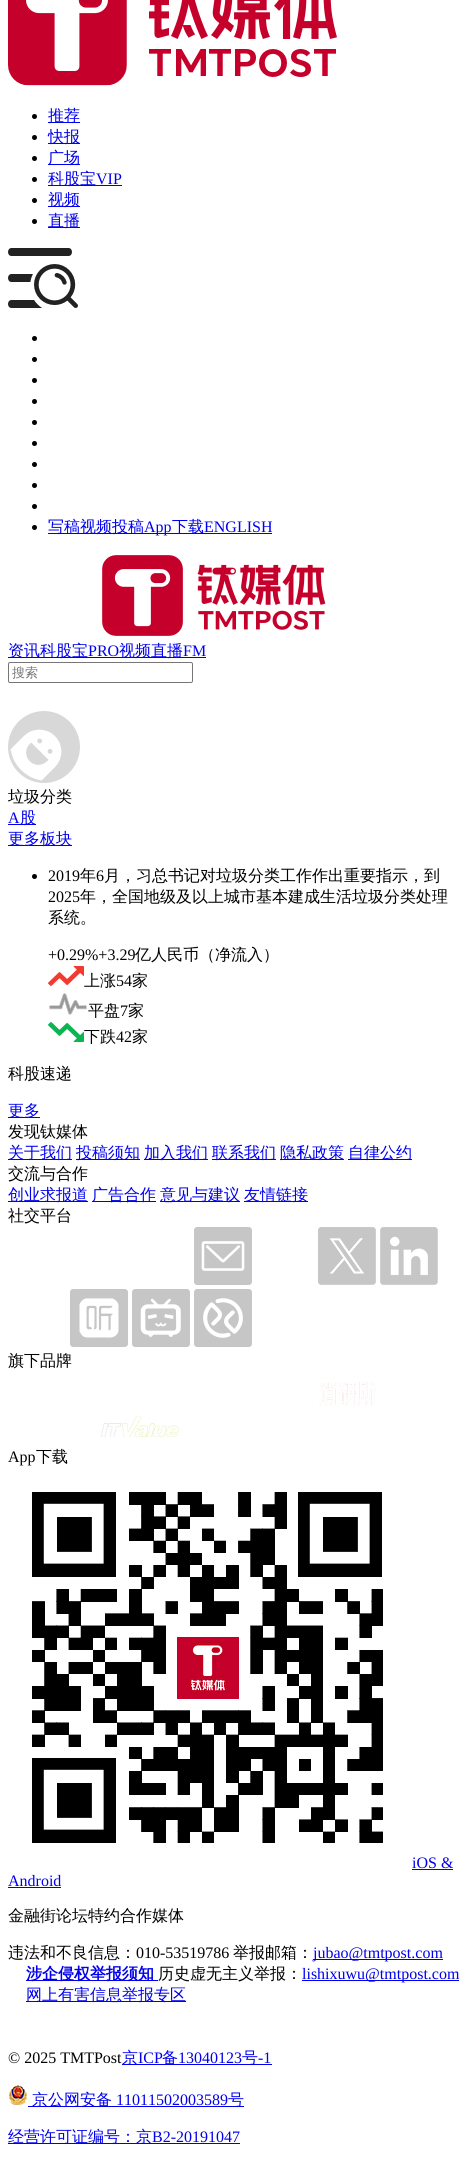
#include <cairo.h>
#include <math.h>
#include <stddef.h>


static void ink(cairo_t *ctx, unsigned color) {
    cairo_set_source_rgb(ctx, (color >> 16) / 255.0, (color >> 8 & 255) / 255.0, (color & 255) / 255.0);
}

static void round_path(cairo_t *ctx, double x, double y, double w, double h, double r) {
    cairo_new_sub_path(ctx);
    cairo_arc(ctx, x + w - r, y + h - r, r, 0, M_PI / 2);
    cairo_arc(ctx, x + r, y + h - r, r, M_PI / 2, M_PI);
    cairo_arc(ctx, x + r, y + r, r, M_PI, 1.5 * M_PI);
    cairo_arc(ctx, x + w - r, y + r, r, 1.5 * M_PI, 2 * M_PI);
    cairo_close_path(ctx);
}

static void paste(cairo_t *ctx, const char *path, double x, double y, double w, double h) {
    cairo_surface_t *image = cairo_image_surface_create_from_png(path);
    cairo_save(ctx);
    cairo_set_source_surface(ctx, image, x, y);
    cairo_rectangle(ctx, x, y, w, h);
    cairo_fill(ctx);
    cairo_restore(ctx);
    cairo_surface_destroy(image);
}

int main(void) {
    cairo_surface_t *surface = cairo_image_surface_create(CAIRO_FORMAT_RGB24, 468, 2160);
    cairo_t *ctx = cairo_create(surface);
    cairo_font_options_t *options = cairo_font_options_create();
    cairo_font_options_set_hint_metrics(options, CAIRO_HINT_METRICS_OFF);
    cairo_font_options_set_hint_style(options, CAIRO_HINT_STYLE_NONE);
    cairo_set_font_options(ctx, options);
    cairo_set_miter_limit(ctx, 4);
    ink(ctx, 0xFFFFFF);
    cairo_paint(ctx);
    paste(ctx, "media/1.png", 8, 0, 329, 86);
    ink(ctx, 0x000000);
    cairo_arc(ctx, 34.5, 116.5, 2.5, 0, 2 * M_PI);
    cairo_fill(ctx);
    ink(ctx, 0x0000EE);
    cairo_rectangle(ctx, 48, 122, 32, 1);
    cairo_fill(ctx);
    cairo_select_font_face(ctx, "WenQuanYi Zen Hei Medium", CAIRO_FONT_SLANT_NORMAL, CAIRO_FONT_WEIGHT_NORMAL);
    cairo_set_font_size(ctx, 16);
    cairo_move_to(ctx, 48, 121);
    cairo_show_text(ctx, "推荐");
    ink(ctx, 0x000000);
    cairo_new_path(ctx);
    cairo_arc(ctx, 34.5, 137.5, 2.5, 0, 2 * M_PI);
    cairo_fill(ctx);
    ink(ctx, 0x0000EE);
    cairo_rectangle(ctx, 48, 143, 32, 1);
    cairo_fill(ctx);
    cairo_move_to(ctx, 48, 142);
    cairo_show_text(ctx, "快报");
    ink(ctx, 0x000000);
    cairo_new_path(ctx);
    cairo_arc(ctx, 34.5, 158.5, 2.5, 0, 2 * M_PI);
    cairo_fill(ctx);
    ink(ctx, 0x0000EE);
    cairo_rectangle(ctx, 48, 164, 32, 1);
    cairo_fill(ctx);
    cairo_move_to(ctx, 48, 163);
    cairo_show_text(ctx, "广场");
    ink(ctx, 0x000000);
    cairo_new_path(ctx);
    cairo_arc(ctx, 34.5, 179.5, 2.5, 0, 2 * M_PI);
    cairo_fill(ctx);
    ink(ctx, 0x0000EE);
    cairo_rectangle(ctx, 48, 185, 74, 1);
    cairo_fill(ctx);
    cairo_move_to(ctx, 48, 184);
    cairo_show_text(ctx, "科股宝");
    cairo_select_font_face(ctx, "Liberation Serif", CAIRO_FONT_SLANT_NORMAL, CAIRO_FONT_WEIGHT_NORMAL);
    cairo_move_to(ctx, 96, 184);
    cairo_show_text(ctx, "VIP");
    ink(ctx, 0x000000);
    cairo_new_path(ctx);
    cairo_arc(ctx, 34.5, 200.5, 2.5, 0, 2 * M_PI);
    cairo_fill(ctx);
    ink(ctx, 0x0000EE);
    cairo_rectangle(ctx, 48, 206, 32, 1);
    cairo_fill(ctx);
    cairo_select_font_face(ctx, "WenQuanYi Zen Hei Medium", CAIRO_FONT_SLANT_NORMAL, CAIRO_FONT_WEIGHT_NORMAL);
    cairo_move_to(ctx, 48, 205);
    cairo_show_text(ctx, "视频");
    ink(ctx, 0x000000);
    cairo_new_path(ctx);
    cairo_arc(ctx, 34.5, 221.5, 2.5, 0, 2 * M_PI);
    cairo_fill(ctx);
    ink(ctx, 0x0000EE);
    cairo_rectangle(ctx, 48, 227, 32, 1);
    cairo_fill(ctx);
    cairo_move_to(ctx, 48, 226);
    cairo_show_text(ctx, "直播");
    paste(ctx, "media/2.png", 8, 248, 70, 60);
    ink(ctx, 0x000000);
    cairo_arc(ctx, 34.5, 338.5, 2.5, 0, 2 * M_PI);
    cairo_fill(ctx);
    cairo_arc(ctx, 34.5, 359.5, 2.5, 0, 2 * M_PI);
    cairo_fill(ctx);
    cairo_arc(ctx, 34.5, 380.5, 2.5, 0, 2 * M_PI);
    cairo_fill(ctx);
    cairo_arc(ctx, 34.5, 401.5, 2.5, 0, 2 * M_PI);
    cairo_fill(ctx);
    cairo_arc(ctx, 34.5, 422.5, 2.5, 0, 2 * M_PI);
    cairo_fill(ctx);
    cairo_arc(ctx, 34.5, 443.5, 2.5, 0, 2 * M_PI);
    cairo_fill(ctx);
    cairo_arc(ctx, 34.5, 464.5, 2.5, 0, 2 * M_PI);
    cairo_fill(ctx);
    cairo_arc(ctx, 34.5, 485.5, 2.5, 0, 2 * M_PI);
    cairo_fill(ctx);
    cairo_arc(ctx, 34.5, 506.5, 2.5, 0, 2 * M_PI);
    cairo_fill(ctx);
    cairo_arc(ctx, 34.5, 527.5, 2.5, 0, 2 * M_PI);
    cairo_fill(ctx);
    ink(ctx, 0x0000EE);
    cairo_rectangle(ctx, 48, 533, 224, 1);
    cairo_fill(ctx);
    cairo_move_to(ctx, 48, 532);
    cairo_show_text(ctx, "写稿视频投稿");
    cairo_select_font_face(ctx, "Liberation Serif", CAIRO_FONT_SLANT_NORMAL, CAIRO_FONT_WEIGHT_NORMAL);
    cairo_move_to(ctx, 144, 532);
    cairo_show_text(ctx, "App");
    cairo_select_font_face(ctx, "WenQuanYi Zen Hei Medium", CAIRO_FONT_SLANT_NORMAL, CAIRO_FONT_WEIGHT_NORMAL);
    cairo_move_to(ctx, 172, 532);
    cairo_show_text(ctx, "下载");
    cairo_select_font_face(ctx, "Liberation Serif", CAIRO_FONT_SLANT_NORMAL, CAIRO_FONT_WEIGHT_NORMAL);
    cairo_move_to(ctx, 204, 532);
    cairo_show_text(ctx, "ENGLISH");
    paste(ctx, "media/3.png", 102, 555, 224, 81);
    cairo_rectangle(ctx, 8, 657, 198, 1);
    cairo_fill(ctx);
    cairo_select_font_face(ctx, "WenQuanYi Zen Hei Medium", CAIRO_FONT_SLANT_NORMAL, CAIRO_FONT_WEIGHT_NORMAL);
    cairo_move_to(ctx, 8, 656);
    cairo_show_text(ctx, "资讯科股宝");
    cairo_select_font_face(ctx, "Liberation Serif", CAIRO_FONT_SLANT_NORMAL, CAIRO_FONT_WEIGHT_NORMAL);
    cairo_move_to(ctx, 88, 656);
    cairo_show_text(ctx, "PRO");
    cairo_select_font_face(ctx, "WenQuanYi Zen Hei Medium", CAIRO_FONT_SLANT_NORMAL, CAIRO_FONT_WEIGHT_NORMAL);
    cairo_move_to(ctx, 119, 656);
    cairo_show_text(ctx, "视频直播");
    cairo_select_font_face(ctx, "Liberation Serif", CAIRO_FONT_SLANT_NORMAL, CAIRO_FONT_WEIGHT_NORMAL);
    cairo_move_to(ctx, 183, 656);
    cairo_show_text(ctx, "FM");
    round_path(ctx, 8.5, 662.5, 184, 20, 1.5);
    ink(ctx, 0x767676);
    cairo_set_line_width(ctx, 1);
    cairo_stroke(ctx);
    cairo_select_font_face(ctx, "WenQuanYi Zen Hei Medium", CAIRO_FONT_SLANT_NORMAL, CAIRO_FONT_WEIGHT_NORMAL);
    cairo_set_font_size(ctx, 13);
    ink(ctx, 0x757575);
    cairo_move_to(ctx, 12, 677);
    cairo_show_text(ctx, "搜索");
    paste(ctx, "media/4.png", 8, 711, 72, 72);
    cairo_set_font_size(ctx, 16);
    ink(ctx, 0x000000);
    cairo_move_to(ctx, 8, 802);
    cairo_show_text(ctx, "垃圾分类");
    cairo_select_font_face(ctx, "Liberation Serif", CAIRO_FONT_SLANT_NORMAL, CAIRO_FONT_WEIGHT_NORMAL);
    ink(ctx, 0x0000EE);
    cairo_move_to(ctx, 8, 823);
    cairo_show_text(ctx, "A");
    cairo_rectangle(ctx, 8, 824, 28, 1);
    cairo_fill(ctx);
    cairo_select_font_face(ctx, "WenQuanYi Zen Hei Medium", CAIRO_FONT_SLANT_NORMAL, CAIRO_FONT_WEIGHT_NORMAL);
    cairo_move_to(ctx, 20, 823);
    cairo_show_text(ctx, "股");
    cairo_rectangle(ctx, 8, 845, 64, 1);
    cairo_fill(ctx);
    cairo_move_to(ctx, 8, 844);
    cairo_show_text(ctx, "更多板块");
    ink(ctx, 0x000000);
    cairo_new_path(ctx);
    cairo_arc(ctx, 34.5, 876.5, 2.5, 0, 2 * M_PI);
    cairo_fill(ctx);
    cairo_select_font_face(ctx, "Liberation Serif", CAIRO_FONT_SLANT_NORMAL, CAIRO_FONT_WEIGHT_NORMAL);
    cairo_move_to(ctx, 48, 881);
    cairo_show_text(ctx, "2019");
    cairo_select_font_face(ctx, "WenQuanYi Zen Hei Medium", CAIRO_FONT_SLANT_NORMAL, CAIRO_FONT_WEIGHT_NORMAL);
    cairo_move_to(ctx, 80, 881);
    cairo_show_text(ctx, "年");
    cairo_select_font_face(ctx, "Liberation Serif", CAIRO_FONT_SLANT_NORMAL, CAIRO_FONT_WEIGHT_NORMAL);
    cairo_move_to(ctx, 96, 881);
    cairo_show_text(ctx, "6");
    cairo_select_font_face(ctx, "WenQuanYi Zen Hei Medium", CAIRO_FONT_SLANT_NORMAL, CAIRO_FONT_WEIGHT_NORMAL);
    cairo_move_to(ctx, 104, 881);
    cairo_show_text(ctx, "月，习总书记对垃圾分类工作作出重要指示，到");
    cairo_select_font_face(ctx, "Liberation Serif", CAIRO_FONT_SLANT_NORMAL, CAIRO_FONT_WEIGHT_NORMAL);
    cairo_move_to(ctx, 48, 902);
    cairo_show_text(ctx, "2025");
    cairo_select_font_face(ctx, "WenQuanYi Zen Hei Medium", CAIRO_FONT_SLANT_NORMAL, CAIRO_FONT_WEIGHT_NORMAL);
    cairo_move_to(ctx, 80, 902);
    cairo_show_text(ctx, "年，全国地级及以上城市基本建成生活垃圾分类处理");
    cairo_move_to(ctx, 48, 923);
    cairo_show_text(ctx, "系统。");
    cairo_select_font_face(ctx, "Liberation Serif", CAIRO_FONT_SLANT_NORMAL, CAIRO_FONT_WEIGHT_NORMAL);
    cairo_move_to(ctx, 48, 960);
    cairo_show_text(ctx, "+0.29%+3.29");
    cairo_select_font_face(ctx, "WenQuanYi Zen Hei Medium", CAIRO_FONT_SLANT_NORMAL, CAIRO_FONT_WEIGHT_NORMAL);
    cairo_move_to(ctx, 135, 960);
    cairo_show_text(ctx, "亿人民币（净流入）");
    paste(ctx, "media/5.png", 48, 966, 36, 20);
    cairo_move_to(ctx, 84, 986);
    cairo_show_text(ctx, "上涨");
    cairo_select_font_face(ctx, "Liberation Serif", CAIRO_FONT_SLANT_NORMAL, CAIRO_FONT_WEIGHT_NORMAL);
    cairo_move_to(ctx, 116, 986);
    cairo_show_text(ctx, "54");
    cairo_select_font_face(ctx, "WenQuanYi Zen Hei Medium", CAIRO_FONT_SLANT_NORMAL, CAIRO_FONT_WEIGHT_NORMAL);
    cairo_move_to(ctx, 132, 986);
    cairo_show_text(ctx, "家");
    paste(ctx, "media/6.png", 49, 993, 38, 22);
    cairo_move_to(ctx, 88, 1016);
    cairo_show_text(ctx, "平盘");
    cairo_select_font_face(ctx, "Liberation Serif", CAIRO_FONT_SLANT_NORMAL, CAIRO_FONT_WEIGHT_NORMAL);
    cairo_move_to(ctx, 120, 1016);
    cairo_show_text(ctx, "7");
    cairo_select_font_face(ctx, "WenQuanYi Zen Hei Medium", CAIRO_FONT_SLANT_NORMAL, CAIRO_FONT_WEIGHT_NORMAL);
    cairo_move_to(ctx, 128, 1016);
    cairo_show_text(ctx, "家");
    paste(ctx, "media/7.png", 48, 1022, 36, 20);
    cairo_move_to(ctx, 84, 1042);
    cairo_show_text(ctx, "下跌");
    cairo_select_font_face(ctx, "Liberation Serif", CAIRO_FONT_SLANT_NORMAL, CAIRO_FONT_WEIGHT_NORMAL);
    cairo_move_to(ctx, 116, 1042);
    cairo_show_text(ctx, "42");
    cairo_select_font_face(ctx, "WenQuanYi Zen Hei Medium", CAIRO_FONT_SLANT_NORMAL, CAIRO_FONT_WEIGHT_NORMAL);
    cairo_move_to(ctx, 132, 1042);
    cairo_show_text(ctx, "家");
    cairo_move_to(ctx, 8, 1079);
    cairo_show_text(ctx, "科股速递");
    ink(ctx, 0x0000EE);
    cairo_rectangle(ctx, 8, 1117, 32, 1);
    cairo_fill(ctx);
    cairo_move_to(ctx, 8, 1116);
    cairo_show_text(ctx, "更多");
    ink(ctx, 0x000000);
    cairo_move_to(ctx, 8, 1137);
    cairo_show_text(ctx, "发现钛媒体");
    ink(ctx, 0x0000EE);
    cairo_rectangle(ctx, 8, 1159, 64, 1);
    cairo_fill(ctx);
    cairo_move_to(ctx, 8, 1158);
    cairo_show_text(ctx, "关于我们");
    cairo_rectangle(ctx, 76, 1159, 64, 1);
    cairo_fill(ctx);
    cairo_move_to(ctx, 76, 1158);
    cairo_show_text(ctx, "投稿须知");
    cairo_rectangle(ctx, 144, 1159, 64, 1);
    cairo_fill(ctx);
    cairo_move_to(ctx, 144, 1158);
    cairo_show_text(ctx, "加入我们");
    cairo_rectangle(ctx, 212, 1159, 64, 1);
    cairo_fill(ctx);
    cairo_move_to(ctx, 212, 1158);
    cairo_show_text(ctx, "联系我们");
    cairo_rectangle(ctx, 280, 1159, 64, 1);
    cairo_fill(ctx);
    cairo_move_to(ctx, 280, 1158);
    cairo_show_text(ctx, "隐私政策");
    cairo_rectangle(ctx, 348, 1159, 64, 1);
    cairo_fill(ctx);
    cairo_move_to(ctx, 348, 1158);
    cairo_show_text(ctx, "自律公约");
    ink(ctx, 0x000000);
    cairo_move_to(ctx, 8, 1179);
    cairo_show_text(ctx, "交流与合作");
    ink(ctx, 0x0000EE);
    cairo_rectangle(ctx, 8, 1201, 80, 1);
    cairo_fill(ctx);
    cairo_move_to(ctx, 8, 1200);
    cairo_show_text(ctx, "创业求报道");
    cairo_rectangle(ctx, 92, 1201, 64, 1);
    cairo_fill(ctx);
    cairo_move_to(ctx, 92, 1200);
    cairo_show_text(ctx, "广告合作");
    cairo_rectangle(ctx, 160, 1201, 80, 1);
    cairo_fill(ctx);
    cairo_move_to(ctx, 160, 1200);
    cairo_show_text(ctx, "意见与建议");
    cairo_rectangle(ctx, 244, 1201, 64, 1);
    cairo_fill(ctx);
    cairo_move_to(ctx, 244, 1200);
    cairo_show_text(ctx, "友情链接");
    ink(ctx, 0x000000);
    cairo_move_to(ctx, 8, 1221);
    cairo_show_text(ctx, "社交平台");
    paste(ctx, "media/8.png", 194, 1227, 58, 58);
    paste(ctx, "media/9.png", 318, 1227, 58, 58);
    paste(ctx, "media/10.png", 380, 1227, 58, 58);
    paste(ctx, "media/11.png", 70, 1289, 58, 58);
    paste(ctx, "media/12.png", 132, 1289, 58, 58);
    paste(ctx, "media/13.png", 194, 1289, 58, 58);
    cairo_move_to(ctx, 8, 1366);
    cairo_show_text(ctx, "旗下品牌");
    paste(ctx, "media/14.png", 319, 1381, 57, 25);
    paste(ctx, "media/15.png", 101, 1416, 78, 21);
    cairo_select_font_face(ctx, "Liberation Serif", CAIRO_FONT_SLANT_NORMAL, CAIRO_FONT_WEIGHT_NORMAL);
    cairo_move_to(ctx, 8, 1462);
    cairo_show_text(ctx, "App");
    cairo_select_font_face(ctx, "WenQuanYi Zen Hei Medium", CAIRO_FONT_SLANT_NORMAL, CAIRO_FONT_WEIGHT_NORMAL);
    cairo_move_to(ctx, 36, 1462);
    cairo_show_text(ctx, "下载");
    paste(ctx, "media/16.png", 32, 1492, 351, 351);
    cairo_select_font_face(ctx, "Liberation Serif", CAIRO_FONT_SLANT_NORMAL, CAIRO_FONT_WEIGHT_NORMAL);
    ink(ctx, 0x0000EE);
    cairo_move_to(ctx, 412, 1868);
    cairo_show_text(ctx, "iOS &");
    cairo_rectangle(ctx, 412, 1869, 41, 1);
    cairo_fill(ctx);
    cairo_move_to(ctx, 8, 1886);
    cairo_show_text(ctx, "Android");
    cairo_rectangle(ctx, 8, 1887, 53, 1);
    cairo_fill(ctx);
    cairo_select_font_face(ctx, "WenQuanYi Zen Hei Medium", CAIRO_FONT_SLANT_NORMAL, CAIRO_FONT_WEIGHT_NORMAL);
    ink(ctx, 0x000000);
    cairo_move_to(ctx, 8, 1921);
    cairo_show_text(ctx, "金融街论坛特约合作媒体");
    cairo_move_to(ctx, 8, 1958);
    cairo_show_text(ctx, "违法和不良信息：");
    cairo_select_font_face(ctx, "Liberation Serif", CAIRO_FONT_SLANT_NORMAL, CAIRO_FONT_WEIGHT_NORMAL);
    cairo_move_to(ctx, 136, 1958);
    cairo_show_text(ctx, "010-53519786");
    cairo_select_font_face(ctx, "WenQuanYi Zen Hei Medium", CAIRO_FONT_SLANT_NORMAL, CAIRO_FONT_WEIGHT_NORMAL);
    cairo_move_to(ctx, 233, 1958);
    cairo_show_text(ctx, "举报邮箱：");
    ink(ctx, 0x0000EE);
    cairo_rectangle(ctx, 313, 1959, 130, 1);
    cairo_fill(ctx);
    cairo_select_font_face(ctx, "Liberation Serif", CAIRO_FONT_SLANT_NORMAL, CAIRO_FONT_WEIGHT_NORMAL);
    cairo_move_to(ctx, 313, 1958);
    cairo_show_text(ctx, "jubao@tmtpost.com");
    cairo_rectangle(ctx, 26, 1980, 132, 1);
    cairo_fill(ctx);
    cairo_select_font_face(ctx, "WenQuanYi Zen Hei", CAIRO_FONT_SLANT_NORMAL, CAIRO_FONT_WEIGHT_BOLD);
    cairo_move_to(ctx, 26, 1979);
    cairo_show_text(ctx, "涉企侵权举报须知");
    cairo_select_font_face(ctx, "WenQuanYi Zen Hei Medium", CAIRO_FONT_SLANT_NORMAL, CAIRO_FONT_WEIGHT_NORMAL);
    ink(ctx, 0x000000);
    cairo_move_to(ctx, 158, 1979);
    cairo_show_text(ctx, "历史虚无主义举报：");
    ink(ctx, 0x0000EE);
    cairo_rectangle(ctx, 302, 1980, 157, 1);
    cairo_fill(ctx);
    cairo_select_font_face(ctx, "Liberation Serif", CAIRO_FONT_SLANT_NORMAL, CAIRO_FONT_WEIGHT_NORMAL);
    cairo_move_to(ctx, 302, 1979);
    cairo_show_text(ctx, "lishixuwu@tmtpost.com");
    cairo_rectangle(ctx, 26, 2001, 160, 1);
    cairo_fill(ctx);
    cairo_select_font_face(ctx, "WenQuanYi Zen Hei Medium", CAIRO_FONT_SLANT_NORMAL, CAIRO_FONT_WEIGHT_NORMAL);
    cairo_move_to(ctx, 26, 2000);
    cairo_show_text(ctx, "网上有害信息举报专区");
    cairo_select_font_face(ctx, "Liberation Serif", CAIRO_FONT_SLANT_NORMAL, CAIRO_FONT_WEIGHT_NORMAL);
    ink(ctx, 0x000000);
    cairo_move_to(ctx, 8, 2063);
    cairo_show_text(ctx, "© 2025 TMTPost");
    ink(ctx, 0x0000EE);
    cairo_rectangle(ctx, 122, 2064, 150, 1);
    cairo_fill(ctx);
    cairo_select_font_face(ctx, "WenQuanYi Zen Hei Medium", CAIRO_FONT_SLANT_NORMAL, CAIRO_FONT_WEIGHT_NORMAL);
    cairo_move_to(ctx, 122, 2063);
    cairo_show_text(ctx, "京");
    cairo_select_font_face(ctx, "Liberation Serif", CAIRO_FONT_SLANT_NORMAL, CAIRO_FONT_WEIGHT_NORMAL);
    cairo_move_to(ctx, 138, 2063);
    cairo_show_text(ctx, "ICP");
    cairo_select_font_face(ctx, "WenQuanYi Zen Hei Medium", CAIRO_FONT_SLANT_NORMAL, CAIRO_FONT_WEIGHT_NORMAL);
    cairo_move_to(ctx, 162, 2063);
    cairo_show_text(ctx, "备");
    cairo_select_font_face(ctx, "Liberation Serif", CAIRO_FONT_SLANT_NORMAL, CAIRO_FONT_WEIGHT_NORMAL);
    cairo_move_to(ctx, 178, 2063);
    cairo_show_text(ctx, "13040123");
    cairo_select_font_face(ctx, "WenQuanYi Zen Hei Medium", CAIRO_FONT_SLANT_NORMAL, CAIRO_FONT_WEIGHT_NORMAL);
    cairo_move_to(ctx, 242, 2063);
    cairo_show_text(ctx, "号");
    cairo_select_font_face(ctx, "Liberation Serif", CAIRO_FONT_SLANT_NORMAL, CAIRO_FONT_WEIGHT_NORMAL);
    cairo_move_to(ctx, 258, 2063);
    cairo_show_text(ctx, "-1");
    paste(ctx, "media/17.png", 9, 2085, 18, 20);
    cairo_rectangle(ctx, 28, 2106, 216, 1);
    cairo_fill(ctx);
    cairo_select_font_face(ctx, "WenQuanYi Zen Hei Medium", CAIRO_FONT_SLANT_NORMAL, CAIRO_FONT_WEIGHT_NORMAL);
    cairo_move_to(ctx, 32, 2105);
    cairo_show_text(ctx, "京公网安备");
    cairo_select_font_face(ctx, "Liberation Serif", CAIRO_FONT_SLANT_NORMAL, CAIRO_FONT_WEIGHT_NORMAL);
    cairo_move_to(ctx, 116, 2105);
    cairo_show_text(ctx, "11011502003589");
    cairo_select_font_face(ctx, "WenQuanYi Zen Hei Medium", CAIRO_FONT_SLANT_NORMAL, CAIRO_FONT_WEIGHT_NORMAL);
    cairo_move_to(ctx, 228, 2105);
    cairo_show_text(ctx, "号");
    cairo_rectangle(ctx, 8, 2143, 232, 1);
    cairo_fill(ctx);
    cairo_move_to(ctx, 8, 2142);
    cairo_show_text(ctx, "经营许可证编号：京");
    cairo_select_font_face(ctx, "Liberation Serif", CAIRO_FONT_SLANT_NORMAL, CAIRO_FONT_WEIGHT_NORMAL);
    cairo_move_to(ctx, 152, 2142);
    cairo_show_text(ctx, "B2-20191047");
    cairo_surface_write_to_png(surface, "image.png");
    cairo_font_options_destroy(options);
    cairo_destroy(ctx);
    cairo_surface_destroy(surface);
    return 0;
}
